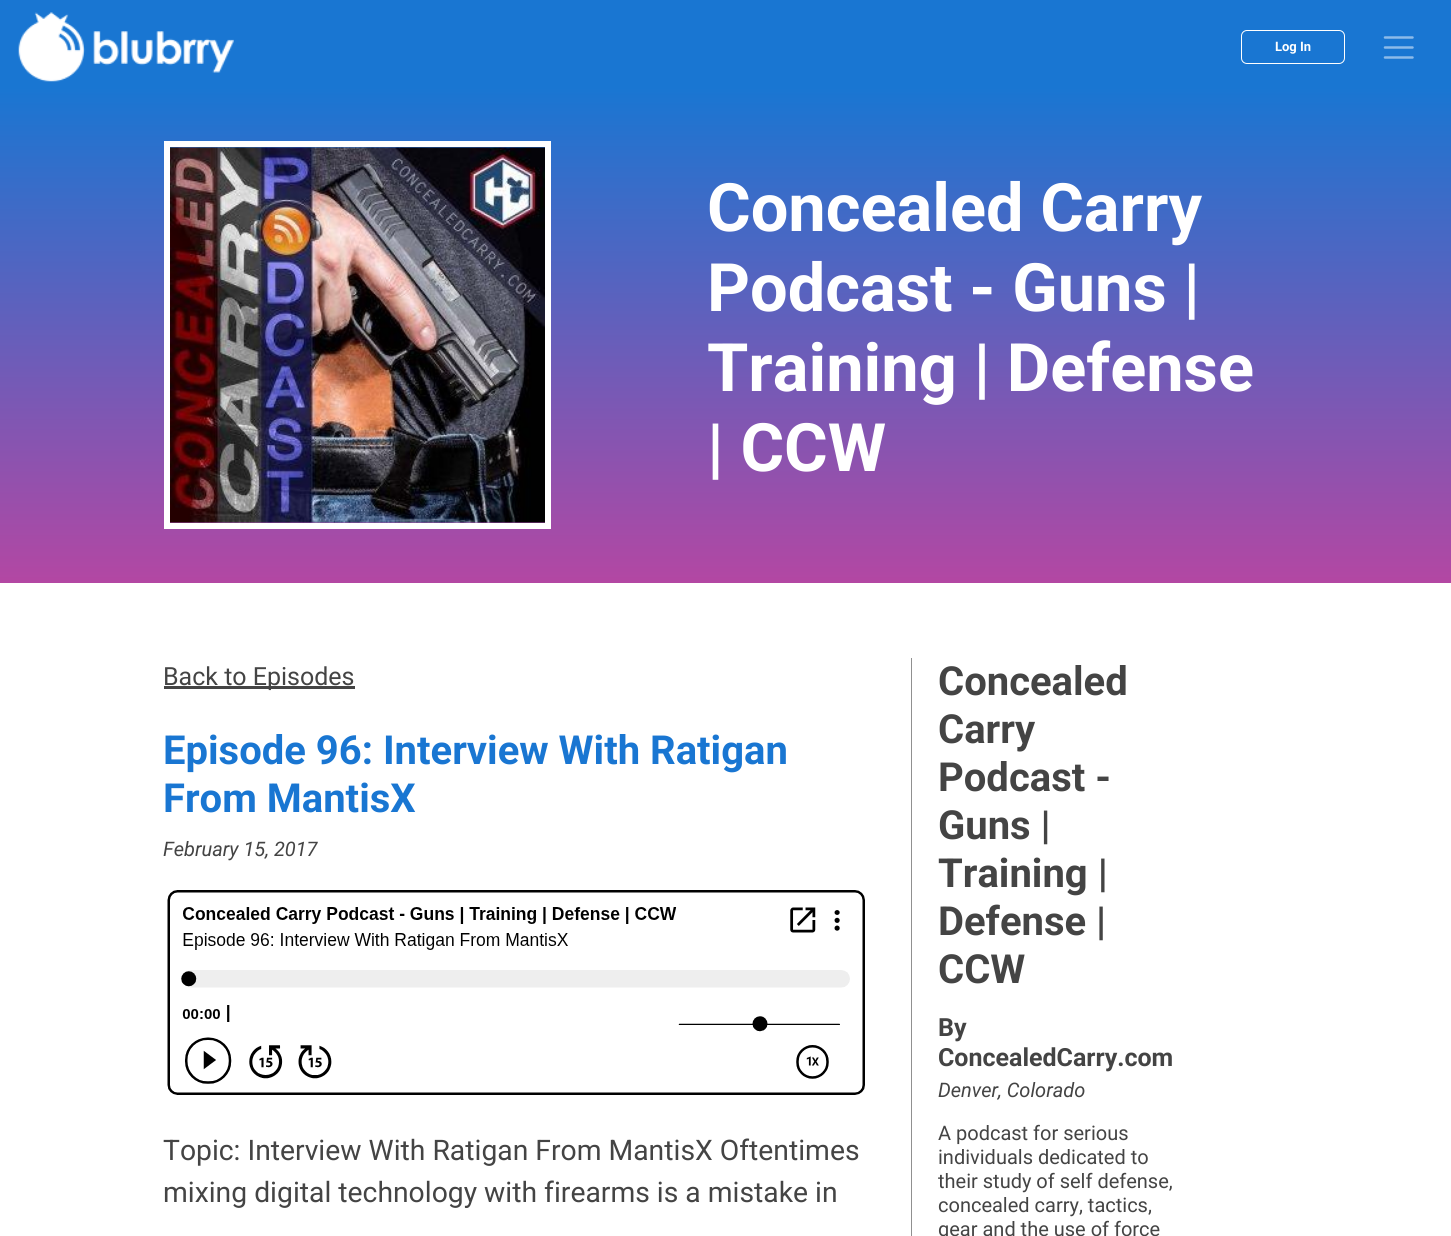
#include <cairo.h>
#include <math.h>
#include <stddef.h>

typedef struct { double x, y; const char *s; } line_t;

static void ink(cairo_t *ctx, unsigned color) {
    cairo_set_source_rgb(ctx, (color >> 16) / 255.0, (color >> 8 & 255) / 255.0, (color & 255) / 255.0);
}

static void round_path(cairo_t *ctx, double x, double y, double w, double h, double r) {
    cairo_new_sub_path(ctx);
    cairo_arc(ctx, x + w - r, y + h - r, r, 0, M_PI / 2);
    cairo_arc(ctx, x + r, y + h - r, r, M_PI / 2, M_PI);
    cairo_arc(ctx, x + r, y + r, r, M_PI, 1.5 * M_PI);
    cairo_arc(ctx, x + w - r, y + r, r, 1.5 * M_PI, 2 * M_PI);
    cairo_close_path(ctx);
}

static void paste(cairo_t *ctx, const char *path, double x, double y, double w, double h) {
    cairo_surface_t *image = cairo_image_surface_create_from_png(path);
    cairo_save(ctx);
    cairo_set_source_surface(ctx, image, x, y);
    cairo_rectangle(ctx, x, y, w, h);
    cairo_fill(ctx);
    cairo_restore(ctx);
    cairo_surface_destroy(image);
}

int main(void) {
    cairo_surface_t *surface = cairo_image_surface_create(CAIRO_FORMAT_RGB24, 1451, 1236);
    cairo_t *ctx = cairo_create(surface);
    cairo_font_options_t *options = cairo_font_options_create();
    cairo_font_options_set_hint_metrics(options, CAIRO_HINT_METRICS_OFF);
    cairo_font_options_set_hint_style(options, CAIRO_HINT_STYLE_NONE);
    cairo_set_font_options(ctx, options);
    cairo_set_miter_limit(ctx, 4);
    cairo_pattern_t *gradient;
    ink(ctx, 0xFFFFFF);
    cairo_paint(ctx);
    ink(ctx, 0x1976D2);
    cairo_rectangle(ctx, 0, 0, 1451, 88);
    cairo_fill(ctx);
    paste(ctx, "media/1.png", 18, 12, 216, 70);
    round_path(ctx, 1241.5, 30.5, 103, 33, 5.5);
    ink(ctx, 0xFFFFFF);
    cairo_set_line_width(ctx, 1);
    cairo_stroke(ctx);
    cairo_select_font_face(ctx, "Roboto", CAIRO_FONT_SLANT_NORMAL, CAIRO_FONT_WEIGHT_BOLD);
    cairo_set_font_size(ctx, 13);
    cairo_move_to(ctx, 1275, 51);
    cairo_show_text(ctx, "Log In");
    cairo_new_path(ctx);
    cairo_move_to(ctx, 1385, 37.5);
    cairo_line_to(ctx, 1412.5, 37.5);
    cairo_move_to(ctx, 1385, 47.5);
    cairo_line_to(ctx, 1412.5, 47.5);
    cairo_move_to(ctx, 1385, 57.5);
    cairo_line_to(ctx, 1412.5, 57.5);
    ink(ctx, 0x8CBBE9);
    cairo_set_line_width(ctx, 2.5);
    cairo_set_line_cap(ctx, CAIRO_LINE_CAP_ROUND);
    cairo_stroke(ctx);
    gradient = cairo_pattern_create_linear(726, 87, 726, 583);
    cairo_pattern_add_color_stop_rgba(gradient, 0, 0.098, 0.463, 0.824, 1);
    cairo_pattern_add_color_stop_rgba(gradient, 1, 0.702, 0.278, 0.639, 1);
    cairo_set_source(ctx, gradient);
    cairo_pattern_destroy(gradient);
    cairo_rectangle(ctx, 0, 88, 1451, 495);
    cairo_fill(ctx);
    paste(ctx, "media/2.png", 170, 147, 375, 376);
    cairo_rectangle(ctx, 167, 144, 381, 382);
    ink(ctx, 0xFFFFFF);
    cairo_set_line_width(ctx, 6);
    cairo_set_line_cap(ctx, CAIRO_LINE_CAP_BUTT);
    cairo_stroke(ctx);
    cairo_set_font_size(ctx, 66.75);
    {
        static const line_t items[] = {
            {707, 231, "Concealed Carry"},
            {707, 311, "Podcast - Guns |"},
            {707, 391, "Training | Defense"},
            {707, 471, "| CCW"},
        };
        for (size_t i = 0; i < sizeof items / sizeof *items; i++) {
            cairo_move_to(ctx, items[i].x, items[i].y);
            cairo_show_text(ctx, items[i].s);
        }
    }
    ink(ctx, 0x909090);
    cairo_rectangle(ctx, 911, 658, 1, 578);
    cairo_fill(ctx);
    ink(ctx, 0x444444);
    cairo_rectangle(ctx, 164, 686, 191, 3);
    cairo_fill(ctx);
    cairo_select_font_face(ctx, "Roboto", CAIRO_FONT_SLANT_NORMAL, CAIRO_FONT_WEIGHT_NORMAL);
    cairo_set_font_size(ctx, 25);
    cairo_move_to(ctx, 163, 685);
    cairo_show_text(ctx, "Back to Episodes");
    cairo_select_font_face(ctx, "Roboto", CAIRO_FONT_SLANT_NORMAL, CAIRO_FONT_WEIGHT_BOLD);
    cairo_set_font_size(ctx, 40);
    ink(ctx, 0x1976D2);
    cairo_move_to(ctx, 163, 764);
    cairo_show_text(ctx, "Episode 96: Interview With Ratigan");
    cairo_move_to(ctx, 163, 812);
    cairo_show_text(ctx, "From MantisX");
    cairo_select_font_face(ctx, "Roboto", CAIRO_FONT_SLANT_ITALIC, CAIRO_FONT_WEIGHT_NORMAL);
    cairo_set_font_size(ctx, 20);
    ink(ctx, 0x444444);
    cairo_move_to(ctx, 163, 856);
    cairo_show_text(ctx, "February 15, 2017");
    paste(ctx, "media/3.png", 167, 890, 698, 205);
    cairo_select_font_face(ctx, "Roboto", CAIRO_FONT_SLANT_NORMAL, CAIRO_FONT_WEIGHT_NORMAL);
    cairo_set_font_size(ctx, 28.3);
    cairo_move_to(ctx, 163, 1160);
    cairo_show_text(ctx, "Topic: Interview With Ratigan From MantisX Oftentimes");
    cairo_move_to(ctx, 163, 1202);
    cairo_show_text(ctx, "mixing digital technology with firearms is a mistake in");
    cairo_select_font_face(ctx, "Roboto", CAIRO_FONT_SLANT_NORMAL, CAIRO_FONT_WEIGHT_BOLD);
    cairo_set_font_size(ctx, 40);
    {
        static const line_t items[] = {
            {938, 695, "Concealed"},
            {938, 743, "Carry"},
            {938, 791, "Podcast -"},
            {938, 839, "Guns |"},
            {938, 887, "Training |"},
            {938, 935, "Defense |"},
            {938, 983, "CCW"},
        };
        for (size_t i = 0; i < sizeof items / sizeof *items; i++) {
            cairo_move_to(ctx, items[i].x, items[i].y);
            cairo_show_text(ctx, items[i].s);
        }
    }
    cairo_set_font_size(ctx, 25);
    cairo_move_to(ctx, 938, 1036);
    cairo_show_text(ctx, "By");
    cairo_move_to(ctx, 938, 1066);
    cairo_show_text(ctx, "ConcealedCarry.com");
    cairo_select_font_face(ctx, "Roboto", CAIRO_FONT_SLANT_ITALIC, CAIRO_FONT_WEIGHT_NORMAL);
    cairo_set_font_size(ctx, 20);
    cairo_move_to(ctx, 938, 1097);
    cairo_show_text(ctx, "Denver, Colorado");
    cairo_select_font_face(ctx, "Roboto", CAIRO_FONT_SLANT_NORMAL, CAIRO_FONT_WEIGHT_NORMAL);
    {
        static const line_t items[] = {
            {938, 1140, "A podcast for serious"},
            {938, 1164, "individuals dedicated to"},
            {938, 1188, "their study of self defense,"},
            {938, 1212, "concealed carry, tactics,"},
            {938, 1236, "gear and the use of force"},
        };
        for (size_t i = 0; i < sizeof items / sizeof *items; i++) {
            cairo_move_to(ctx, items[i].x, items[i].y);
            cairo_show_text(ctx, items[i].s);
        }
    }
    cairo_surface_write_to_png(surface, "image.png");
    cairo_font_options_destroy(options);
    cairo_destroy(ctx);
    cairo_surface_destroy(surface);
    return 0;
}
